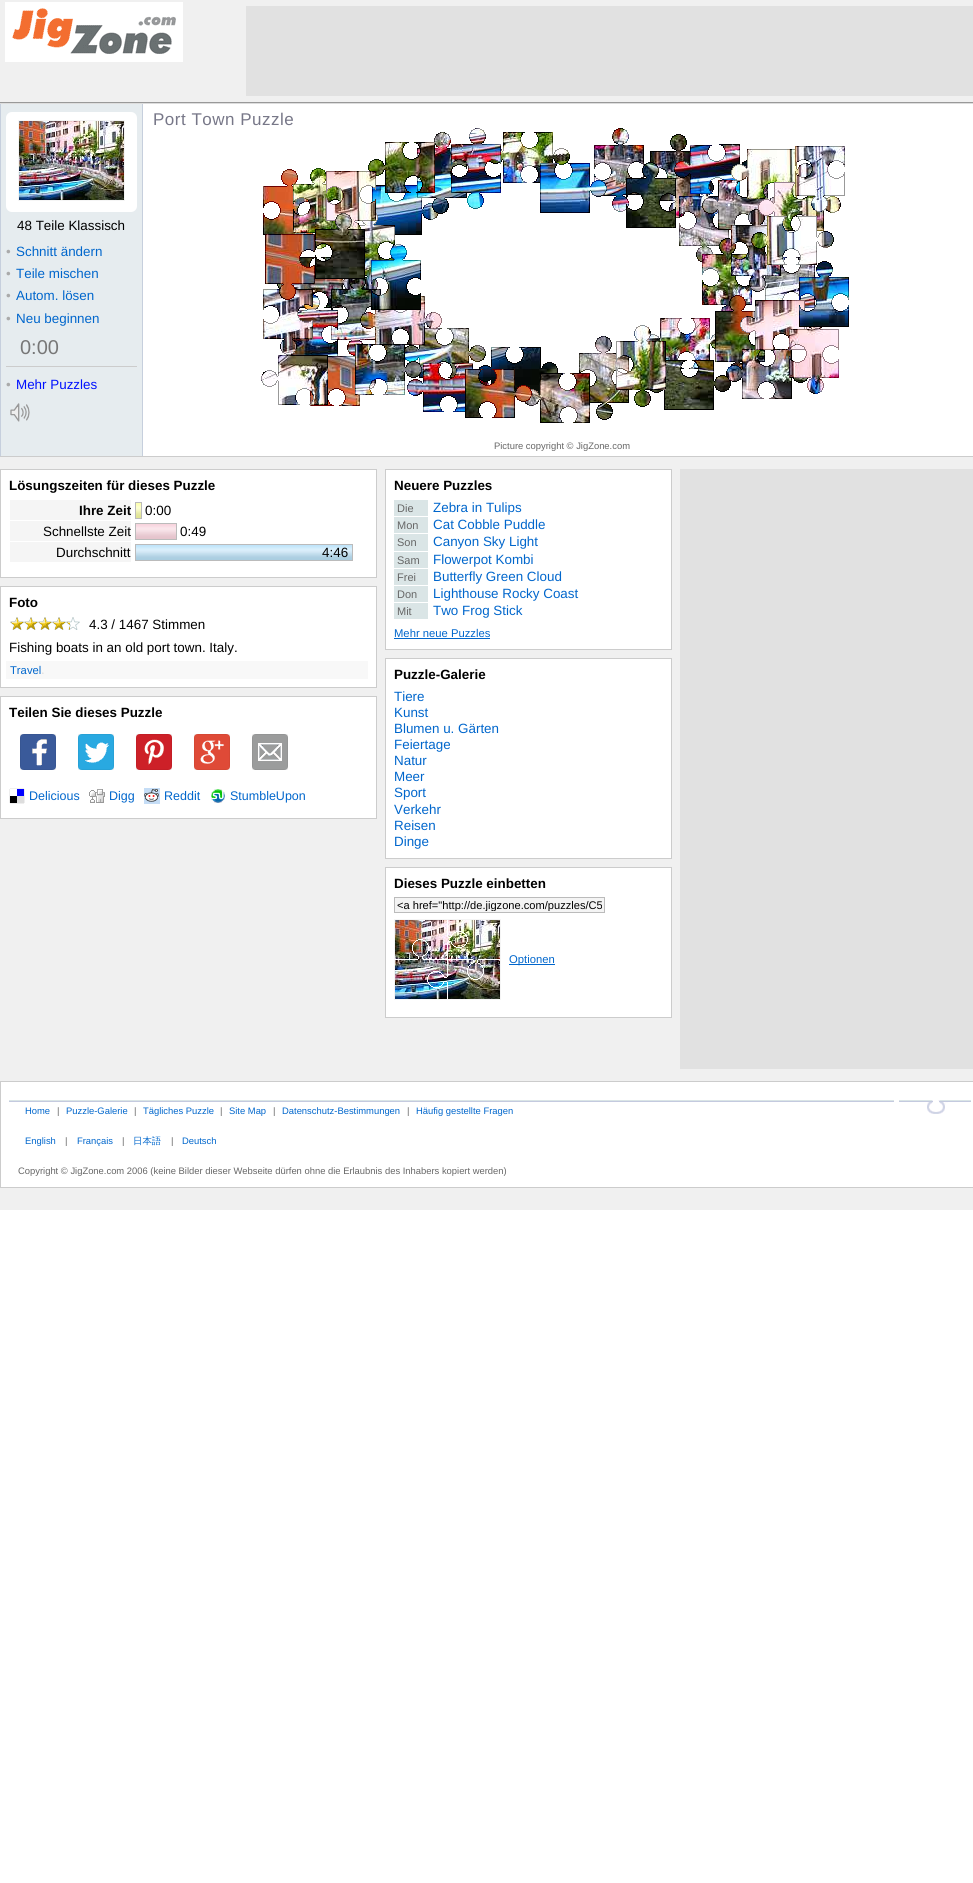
#include <cairo.h>
#include <math.h>
#include <stddef.h>

typedef struct { double x, y; const char *s; } line_t;
typedef struct { double x, y, w, h; unsigned color; } box_t;

static void ink(cairo_t *ctx, unsigned color) {
    cairo_set_source_rgb(ctx, (color >> 16) / 255.0, (color >> 8 & 255) / 255.0, (color & 255) / 255.0);
}

static void write_spaced(cairo_t *ctx, double x, double y, const char *s, double letter, double word) {
    cairo_move_to(ctx, x, y);
    while (*s) {
        char ch[5] = {0};
        int n = 0;
        do ch[n++] = *s++; while ((*s & 0xC0) == 0x80);
        cairo_show_text(ctx, ch);
        cairo_rel_move_to(ctx, letter + word * (*ch == ' '), 0);
    }
}

static void round_path(cairo_t *ctx, double x, double y, double w, double h, double r) {
    cairo_new_sub_path(ctx);
    cairo_arc(ctx, x + w - r, y + h - r, r, 0, M_PI / 2);
    cairo_arc(ctx, x + r, y + h - r, r, M_PI / 2, M_PI);
    cairo_arc(ctx, x + r, y + r, r, M_PI, 1.5 * M_PI);
    cairo_arc(ctx, x + w - r, y + r, r, 1.5 * M_PI, 2 * M_PI);
    cairo_close_path(ctx);
}

static void paste(cairo_t *ctx, const char *path, double x, double y, double w, double h) {
    cairo_surface_t *image = cairo_image_surface_create_from_png(path);
    cairo_save(ctx);
    cairo_set_source_surface(ctx, image, x, y);
    cairo_rectangle(ctx, x, y, w, h);
    cairo_fill(ctx);
    cairo_restore(ctx);
    cairo_surface_destroy(image);
}

int main(void) {
    cairo_surface_t *surface = cairo_image_surface_create(CAIRO_FORMAT_RGB24, 973, 1883);
    cairo_t *ctx = cairo_create(surface);
    cairo_font_options_t *options = cairo_font_options_create();
    cairo_font_options_set_hint_metrics(options, CAIRO_HINT_METRICS_OFF);
    cairo_font_options_set_hint_style(options, CAIRO_HINT_STYLE_NONE);
    cairo_set_font_options(ctx, options);
    cairo_set_miter_limit(ctx, 4);
    ink(ctx, 0xFFFFFF);
    cairo_paint(ctx);
    ink(ctx, 0xF0F0F0);
    cairo_rectangle(ctx, 0, 0, 973, 102);
    cairo_fill(ctx);
    ink(ctx, 0x999999);
    cairo_rectangle(ctx, 0, 102, 973, 1);
    cairo_fill(ctx);
    paste(ctx, "media/1.png", 5, 2, 178, 60);
    {
        static const box_t items[] = {
            {246, 6, 727, 90, 0xE1E1E1},
            {0, 103, 973, 1, 0xDDDDDD},
            {0, 456, 973, 1, 0xCCCCCC},
            {1, 104, 141, 352, 0xE6ECEF},
            {142, 104, 1, 352, 0xC6CFDD},
            {0, 104, 1, 352, 0xC6CFDD},
        };
        for (size_t i = 0; i < sizeof items / sizeof *items; i++) {
            ink(ctx, items[i].color);
            cairo_rectangle(ctx, items[i].x, items[i].y, items[i].w, items[i].h);
            cairo_fill(ctx);
        }
    }
    ink(ctx, 0xFFFFFF);
    round_path(ctx, 6, 112, 131, 100, 6);
    cairo_fill(ctx);
    cairo_rectangle(ctx, 18.5, 120.5, 106, 80);
    ink(ctx, 0xF5F5F5);
    cairo_set_line_width(ctx, 1);
    cairo_stroke(ctx);
    paste(ctx, "media/2.png", 19, 121, 105, 79);
    ink(ctx, 0xCCCCCC);
    cairo_rectangle(ctx, 6, 366, 131, 1);
    cairo_fill(ctx);
    cairo_select_font_face(ctx, "Liberation Sans", CAIRO_FONT_SLANT_NORMAL, CAIRO_FONT_WEIGHT_NORMAL);
    cairo_set_font_size(ctx, 13.4);
    ink(ctx, 0x000000);
    cairo_move_to(ctx, 17, 230);
    cairo_show_text(ctx, "48 Teile Klassisch");
    ink(ctx, 0xAAAAAA);
    cairo_move_to(ctx, 6, 256);
    cairo_show_text(ctx, "•");
    ink(ctx, 0x0066CC);
    cairo_move_to(ctx, 16, 256);
    cairo_show_text(ctx, "Schnitt ändern");
    ink(ctx, 0xAAAAAA);
    cairo_move_to(ctx, 6, 278);
    cairo_show_text(ctx, "•");
    ink(ctx, 0x0066CC);
    cairo_move_to(ctx, 16, 278);
    cairo_show_text(ctx, "Teile mischen");
    ink(ctx, 0xAAAAAA);
    cairo_move_to(ctx, 6, 300);
    cairo_show_text(ctx, "•");
    ink(ctx, 0x0066CC);
    cairo_move_to(ctx, 16, 300);
    cairo_show_text(ctx, "Autom. lösen");
    ink(ctx, 0xAAAAAA);
    cairo_move_to(ctx, 6, 323);
    cairo_show_text(ctx, "•");
    ink(ctx, 0x0066CC);
    cairo_move_to(ctx, 16, 323);
    cairo_show_text(ctx, "Neu beginnen");
    cairo_set_font_size(ctx, 20);
    ink(ctx, 0x777777);
    cairo_move_to(ctx, 20, 354);
    cairo_show_text(ctx, "0:00");
    cairo_set_font_size(ctx, 13.4);
    ink(ctx, 0xAAAAAA);
    cairo_move_to(ctx, 6, 389);
    cairo_show_text(ctx, "•");
    ink(ctx, 0x0011FF);
    cairo_move_to(ctx, 16, 389);
    cairo_show_text(ctx, "Mehr Puzzles");
    paste(ctx, "media/3.png", 10, 403, 20, 19);
    cairo_set_font_size(ctx, 17);
    ink(ctx, 0x777788);
    write_spaced(ctx, 153, 125, "Port Town Puzzle", 0.5, 0);
    paste(ctx, "media/4.png", 261, 128, 588, 295);
    cairo_set_font_size(ctx, 9.4);
    ink(ctx, 0x666666);
    cairo_move_to(ctx, 494, 449);
    cairo_show_text(ctx, "Picture copyright © JigZone.com");
    ink(ctx, 0xF0F0F0);
    cairo_rectangle(ctx, 0, 457, 973, 753);
    cairo_fill(ctx);
    ink(ctx, 0xFFFFFF);
    cairo_rectangle(ctx, 0.5, 469.5, 376, 108);
    cairo_fill_preserve(ctx);
    ink(ctx, 0xCCCCCC);
    cairo_stroke(ctx);
    cairo_select_font_face(ctx, "Liberation Sans", CAIRO_FONT_SLANT_NORMAL, CAIRO_FONT_WEIGHT_BOLD);
    cairo_set_font_size(ctx, 13.4);
    ink(ctx, 0x000000);
    cairo_move_to(ctx, 9, 490);
    cairo_show_text(ctx, "Lösungszeiten für dieses Puzzle");
    ink(ctx, 0xF5F5F5);
    cairo_rectangle(ctx, 10, 500, 121, 20);
    cairo_fill(ctx);
    ink(ctx, 0x000000);
    cairo_move_to(ctx, 79, 515);
    cairo_show_text(ctx, "Ihre Zeit");
    paste(ctx, "media/5.png", 136, 503, 5, 15);
    cairo_rectangle(ctx, 135.5, 502.5, 6, 16);
    ink(ctx, 0xBBBBBB);
    cairo_stroke(ctx);
    cairo_select_font_face(ctx, "Liberation Sans", CAIRO_FONT_SLANT_NORMAL, CAIRO_FONT_WEIGHT_NORMAL);
    ink(ctx, 0x000000);
    cairo_move_to(ctx, 145, 515);
    cairo_show_text(ctx, "0:00");
    ink(ctx, 0xF5F5F5);
    cairo_rectangle(ctx, 10, 521, 121, 20);
    cairo_fill(ctx);
    ink(ctx, 0x000000);
    cairo_move_to(ctx, 43, 536);
    cairo_show_text(ctx, "Schnellste Zeit");
    paste(ctx, "media/6.png", 136, 524, 40, 15);
    cairo_rectangle(ctx, 135.5, 523.5, 41, 16);
    ink(ctx, 0xBBBBBB);
    cairo_stroke(ctx);
    ink(ctx, 0x000000);
    cairo_move_to(ctx, 180, 536);
    cairo_show_text(ctx, "0:49");
    ink(ctx, 0xF5F5F5);
    cairo_rectangle(ctx, 10, 542, 121, 20);
    cairo_fill(ctx);
    ink(ctx, 0x000000);
    cairo_move_to(ctx, 56, 557);
    cairo_show_text(ctx, "Durchschnitt");
    paste(ctx, "media/7.png", 136, 545, 216, 15);
    cairo_rectangle(ctx, 135.5, 544.5, 217, 16);
    ink(ctx, 0xBBBBBB);
    cairo_stroke(ctx);
    ink(ctx, 0x000000);
    cairo_move_to(ctx, 322, 557);
    cairo_show_text(ctx, "4:46");
    ink(ctx, 0xFFFFFF);
    cairo_rectangle(ctx, 0.5, 586.5, 376, 101);
    cairo_fill_preserve(ctx);
    ink(ctx, 0xCCCCCC);
    cairo_stroke(ctx);
    cairo_select_font_face(ctx, "Liberation Sans", CAIRO_FONT_SLANT_NORMAL, CAIRO_FONT_WEIGHT_BOLD);
    ink(ctx, 0x000000);
    cairo_move_to(ctx, 9, 607);
    cairo_show_text(ctx, "Foto");
    paste(ctx, "media/8.png", 10, 617, 60, 13);
    paste(ctx, "media/9.png", 70, 617, 10, 13);
    cairo_select_font_face(ctx, "Liberation Sans", CAIRO_FONT_SLANT_NORMAL, CAIRO_FONT_WEIGHT_NORMAL);
    cairo_move_to(ctx, 89, 629);
    cairo_show_text(ctx, "4.3 / 1467 Stimmen");
    cairo_move_to(ctx, 9, 652);
    cairo_show_text(ctx, "Fishing boats in an old port town. Italy.");
    ink(ctx, 0xF8F8F8);
    cairo_rectangle(ctx, 6, 661, 362, 18);
    cairo_fill(ctx);
    cairo_set_font_size(ctx, 11.25);
    ink(ctx, 0x0066CC);
    cairo_move_to(ctx, 10, 674);
    cairo_show_text(ctx, "Travel");
    cairo_set_font_size(ctx, 13.4);
    ink(ctx, 0xDDDDDD);
    cairo_move_to(ctx, 41, 674);
    cairo_show_text(ctx, ".");
    ink(ctx, 0xFFFFFF);
    cairo_rectangle(ctx, 0.5, 696.5, 376, 122);
    cairo_fill_preserve(ctx);
    ink(ctx, 0xCCCCCC);
    cairo_stroke(ctx);
    cairo_select_font_face(ctx, "Liberation Sans", CAIRO_FONT_SLANT_NORMAL, CAIRO_FONT_WEIGHT_BOLD);
    ink(ctx, 0x000000);
    cairo_move_to(ctx, 9, 717);
    cairo_show_text(ctx, "Teilen Sie dieses Puzzle");
    paste(ctx, "media/10.png", 20, 734, 36, 36);
    cairo_rectangle(ctx, 20.5, 734.5, 35, 35);
    cairo_set_source_rgba(ctx, 0, 0, 0, 0.05);
    cairo_stroke(ctx);
    paste(ctx, "media/11.png", 78, 734, 36, 36);
    cairo_rectangle(ctx, 78.5, 734.5, 35, 35);
    cairo_stroke(ctx);
    paste(ctx, "media/12.png", 136, 734, 36, 36);
    cairo_rectangle(ctx, 136.5, 734.5, 35, 35);
    cairo_stroke(ctx);
    paste(ctx, "media/13.png", 194, 734, 36, 36);
    cairo_rectangle(ctx, 194.5, 734.5, 35, 35);
    cairo_stroke(ctx);
    paste(ctx, "media/14.png", 252, 734, 36, 36);
    cairo_rectangle(ctx, 252.5, 734.5, 35, 35);
    cairo_stroke(ctx);
    paste(ctx, "media/15.png", 9, 788, 16, 16);
    cairo_select_font_face(ctx, "Liberation Sans", CAIRO_FONT_SLANT_NORMAL, CAIRO_FONT_WEIGHT_NORMAL);
    cairo_set_font_size(ctx, 12.5);
    ink(ctx, 0x0066CC);
    cairo_move_to(ctx, 29, 800);
    cairo_show_text(ctx, "Delicious");
    paste(ctx, "media/16.png", 89, 789, 16, 14);
    cairo_move_to(ctx, 109, 800);
    cairo_show_text(ctx, "Digg");
    paste(ctx, "media/17.png", 144, 788, 16, 16);
    cairo_move_to(ctx, 164, 800);
    cairo_show_text(ctx, "Reddit");
    paste(ctx, "media/18.png", 211, 789, 14, 14);
    cairo_move_to(ctx, 230, 800);
    cairo_show_text(ctx, "StumbleUpon");
    ink(ctx, 0xFFFFFF);
    cairo_rectangle(ctx, 385.5, 469.5, 286, 180);
    cairo_fill_preserve(ctx);
    ink(ctx, 0xCCCCCC);
    cairo_stroke(ctx);
    cairo_select_font_face(ctx, "Liberation Sans", CAIRO_FONT_SLANT_NORMAL, CAIRO_FONT_WEIGHT_BOLD);
    cairo_set_font_size(ctx, 13.4);
    ink(ctx, 0x000000);
    cairo_move_to(ctx, 394, 490);
    cairo_show_text(ctx, "Neuere Puzzles");
    ink(ctx, 0xDAE5E6);
    cairo_rectangle(ctx, 394, 500, 34, 16);
    cairo_fill(ctx);
    cairo_select_font_face(ctx, "Liberation Sans", CAIRO_FONT_SLANT_NORMAL, CAIRO_FONT_WEIGHT_NORMAL);
    cairo_set_font_size(ctx, 11);
    ink(ctx, 0x666666);
    cairo_move_to(ctx, 397, 512);
    cairo_show_text(ctx, "Die");
    cairo_set_font_size(ctx, 13.4);
    ink(ctx, 0x0066CC);
    cairo_move_to(ctx, 433, 512);
    cairo_show_text(ctx, "Zebra in Tulips");
    ink(ctx, 0xDAE5E6);
    cairo_rectangle(ctx, 394, 517, 34, 16);
    cairo_fill(ctx);
    cairo_set_font_size(ctx, 11);
    ink(ctx, 0x666666);
    cairo_move_to(ctx, 397, 529);
    cairo_show_text(ctx, "Mon");
    cairo_set_font_size(ctx, 13.4);
    ink(ctx, 0x0066CC);
    cairo_move_to(ctx, 433, 529);
    cairo_show_text(ctx, "Cat Cobble Puddle");
    ink(ctx, 0xDAE5E6);
    cairo_rectangle(ctx, 394, 534, 34, 17);
    cairo_fill(ctx);
    cairo_set_font_size(ctx, 11);
    ink(ctx, 0x666666);
    cairo_move_to(ctx, 397, 546);
    cairo_show_text(ctx, "Son");
    cairo_set_font_size(ctx, 13.4);
    ink(ctx, 0x0066CC);
    cairo_move_to(ctx, 433, 546);
    cairo_show_text(ctx, "Canyon Sky Light");
    ink(ctx, 0xDAE5E6);
    cairo_rectangle(ctx, 394, 552, 34, 16);
    cairo_fill(ctx);
    cairo_set_font_size(ctx, 11);
    ink(ctx, 0x666666);
    cairo_move_to(ctx, 397, 564);
    cairo_show_text(ctx, "Sam");
    cairo_set_font_size(ctx, 13.4);
    ink(ctx, 0x0066CC);
    cairo_move_to(ctx, 433, 564);
    cairo_show_text(ctx, "Flowerpot Kombi");
    ink(ctx, 0xDAE5E6);
    cairo_rectangle(ctx, 394, 569, 34, 16);
    cairo_fill(ctx);
    cairo_set_font_size(ctx, 11);
    ink(ctx, 0x666666);
    cairo_move_to(ctx, 397, 581);
    cairo_show_text(ctx, "Frei");
    cairo_set_font_size(ctx, 13.4);
    ink(ctx, 0x0066CC);
    cairo_move_to(ctx, 433, 581);
    cairo_show_text(ctx, "Butterfly Green Cloud");
    ink(ctx, 0xDAE5E6);
    cairo_rectangle(ctx, 394, 586, 34, 16);
    cairo_fill(ctx);
    cairo_set_font_size(ctx, 11);
    ink(ctx, 0x666666);
    cairo_move_to(ctx, 397, 598);
    cairo_show_text(ctx, "Don");
    cairo_set_font_size(ctx, 13.4);
    ink(ctx, 0x0066CC);
    cairo_move_to(ctx, 433, 598);
    cairo_show_text(ctx, "Lighthouse Rocky Coast");
    ink(ctx, 0xDAE5E6);
    cairo_rectangle(ctx, 394, 603, 34, 16);
    cairo_fill(ctx);
    cairo_set_font_size(ctx, 11);
    ink(ctx, 0x666666);
    cairo_move_to(ctx, 397, 615);
    cairo_show_text(ctx, "Mit");
    cairo_set_font_size(ctx, 13.4);
    ink(ctx, 0x0066CC);
    cairo_move_to(ctx, 433, 615);
    cairo_show_text(ctx, "Two Frog Stick");
    cairo_set_font_size(ctx, 11.25);
    cairo_move_to(ctx, 394, 637);
    cairo_show_text(ctx, "Mehr neue Puzzles");
    cairo_rectangle(ctx, 394, 638, 96, 1);
    cairo_fill(ctx);
    ink(ctx, 0xFFFFFF);
    cairo_rectangle(ctx, 385.5, 658.5, 286, 200);
    cairo_fill_preserve(ctx);
    ink(ctx, 0xCCCCCC);
    cairo_stroke(ctx);
    cairo_select_font_face(ctx, "Liberation Sans", CAIRO_FONT_SLANT_NORMAL, CAIRO_FONT_WEIGHT_BOLD);
    cairo_set_font_size(ctx, 13.4);
    ink(ctx, 0x000000);
    cairo_move_to(ctx, 394, 679);
    cairo_show_text(ctx, "Puzzle-Galerie");
    cairo_select_font_face(ctx, "Liberation Sans", CAIRO_FONT_SLANT_NORMAL, CAIRO_FONT_WEIGHT_NORMAL);
    ink(ctx, 0x0066CC);
    {
        static const line_t items[] = {
            {394, 701, "Tiere"},
            {394, 717, "Kunst"},
            {394, 733, "Blumen u. Gärten"},
            {394, 749, "Feiertage"},
            {394, 765, "Natur"},
            {394, 781, "Meer"},
            {394, 797, "Sport"},
            {394, 814, "Verkehr"},
            {394, 830, "Reisen"},
            {394, 846, "Dinge"},
        };
        for (size_t i = 0; i < sizeof items / sizeof *items; i++) {
            cairo_move_to(ctx, items[i].x, items[i].y);
            cairo_show_text(ctx, items[i].s);
        }
    }
    ink(ctx, 0xFFFFFF);
    cairo_rectangle(ctx, 385.5, 867.5, 286, 150);
    cairo_fill_preserve(ctx);
    ink(ctx, 0xCCCCCC);
    cairo_stroke(ctx);
    cairo_select_font_face(ctx, "Liberation Sans", CAIRO_FONT_SLANT_NORMAL, CAIRO_FONT_WEIGHT_BOLD);
    ink(ctx, 0x000000);
    cairo_move_to(ctx, 394, 888);
    cairo_show_text(ctx, "Dieses Puzzle einbetten");
    ink(ctx, 0xF4F4F4);
    cairo_rectangle(ctx, 394.5, 897.5, 210, 15);
    cairo_fill_preserve(ctx);
    ink(ctx, 0xBBBBBB);
    cairo_stroke(ctx);
    cairo_save(ctx);
    cairo_rectangle(ctx, 397, 899, 205, 12);
    cairo_clip(ctx);
    cairo_select_font_face(ctx, "Liberation Sans", CAIRO_FONT_SLANT_NORMAL, CAIRO_FONT_WEIGHT_NORMAL);
    cairo_set_font_size(ctx, 11.1);
    ink(ctx, 0x000000);
    cairo_move_to(ctx, 397, 909);
    cairo_show_text(ctx, "<a href=\"http://de.jigzone.com/puzzles/C5");
    cairo_restore(ctx);
    paste(ctx, "media/19.png", 395, 920, 105, 79);
    ink(ctx, 0x0066CC);
    cairo_rectangle(ctx, 509, 964, 46, 1);
    cairo_fill(ctx);
    cairo_select_font_face(ctx, "Liberation Sans", CAIRO_FONT_SLANT_NORMAL, CAIRO_FONT_WEIGHT_NORMAL);
    cairo_set_font_size(ctx, 11.25);
    cairo_move_to(ctx, 509, 963);
    cairo_show_text(ctx, "Optionen");
    cairo_rectangle(ctx, 394.5, 919.5, 106, 80);
    ink(ctx, 0xF5F5F5);
    cairo_stroke(ctx);
    ink(ctx, 0xE1E1E1);
    cairo_rectangle(ctx, 680, 469, 293, 600);
    cairo_fill(ctx);
    ink(ctx, 0xFFFFFF);
    cairo_rectangle(ctx, 0.5, 1081.5, 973, 106);
    cairo_fill_preserve(ctx);
    ink(ctx, 0xCCCCCC);
    cairo_stroke(ctx);
    paste(ctx, "media/20.png", 9, 1100, 202, 2);
    paste(ctx, "media/21.png", 211, 1100, 760, 14);
    cairo_set_font_size(ctx, 9.4);
    ink(ctx, 0x0066CC);
    cairo_move_to(ctx, 25, 1114);
    cairo_show_text(ctx, "Home");
    ink(ctx, 0x666666);
    cairo_move_to(ctx, 57, 1114);
    cairo_show_text(ctx, "|");
    ink(ctx, 0x0066CC);
    cairo_move_to(ctx, 66, 1114);
    cairo_show_text(ctx, "Puzzle-Galerie");
    ink(ctx, 0x666666);
    cairo_move_to(ctx, 134, 1114);
    cairo_show_text(ctx, "|");
    ink(ctx, 0x0066CC);
    cairo_move_to(ctx, 143, 1114);
    cairo_show_text(ctx, "Tägliches Puzzle");
    ink(ctx, 0x666666);
    cairo_move_to(ctx, 220, 1114);
    cairo_show_text(ctx, "|");
    ink(ctx, 0x0066CC);
    cairo_move_to(ctx, 229, 1114);
    cairo_show_text(ctx, "Site Map");
    ink(ctx, 0x666666);
    cairo_move_to(ctx, 273, 1114);
    cairo_show_text(ctx, "|");
    ink(ctx, 0x0066CC);
    cairo_move_to(ctx, 282, 1114);
    cairo_show_text(ctx, "Datenschutz-Bestimmungen");
    ink(ctx, 0x666666);
    cairo_move_to(ctx, 407, 1114);
    cairo_show_text(ctx, "|");
    ink(ctx, 0x0066CC);
    cairo_move_to(ctx, 416, 1114);
    cairo_show_text(ctx, "Häufig gestellte Fragen");
    cairo_move_to(ctx, 25, 1144);
    cairo_show_text(ctx, "English");
    ink(ctx, 0x666666);
    cairo_move_to(ctx, 65, 1144);
    cairo_show_text(ctx, "|");
    ink(ctx, 0x0066CC);
    cairo_move_to(ctx, 77, 1144);
    cairo_show_text(ctx, "Français");
    ink(ctx, 0x666666);
    cairo_move_to(ctx, 122, 1144);
    cairo_show_text(ctx, "|");
    cairo_select_font_face(ctx, "WenQuanYi Zen Hei Medium", CAIRO_FONT_SLANT_NORMAL, CAIRO_FONT_WEIGHT_NORMAL);
    ink(ctx, 0x0066CC);
    cairo_move_to(ctx, 133, 1144);
    cairo_show_text(ctx, "日本語");
    cairo_select_font_face(ctx, "Liberation Sans", CAIRO_FONT_SLANT_NORMAL, CAIRO_FONT_WEIGHT_NORMAL);
    ink(ctx, 0x666666);
    cairo_move_to(ctx, 171, 1144);
    cairo_show_text(ctx, "|");
    ink(ctx, 0x0066CC);
    cairo_move_to(ctx, 182, 1144);
    cairo_show_text(ctx, "Deutsch");
    ink(ctx, 0x666666);
    cairo_move_to(ctx, 18, 1174);
    cairo_show_text(ctx, "Copyright © JigZone.com 2006 (keine Bilder dieser Webseite dürfen ohne die Erlaubnis des Inhabers kopiert werden)");
    cairo_surface_write_to_png(surface, "image.png");
    cairo_font_options_destroy(options);
    cairo_destroy(ctx);
    cairo_surface_destroy(surface);
    return 0;
}
